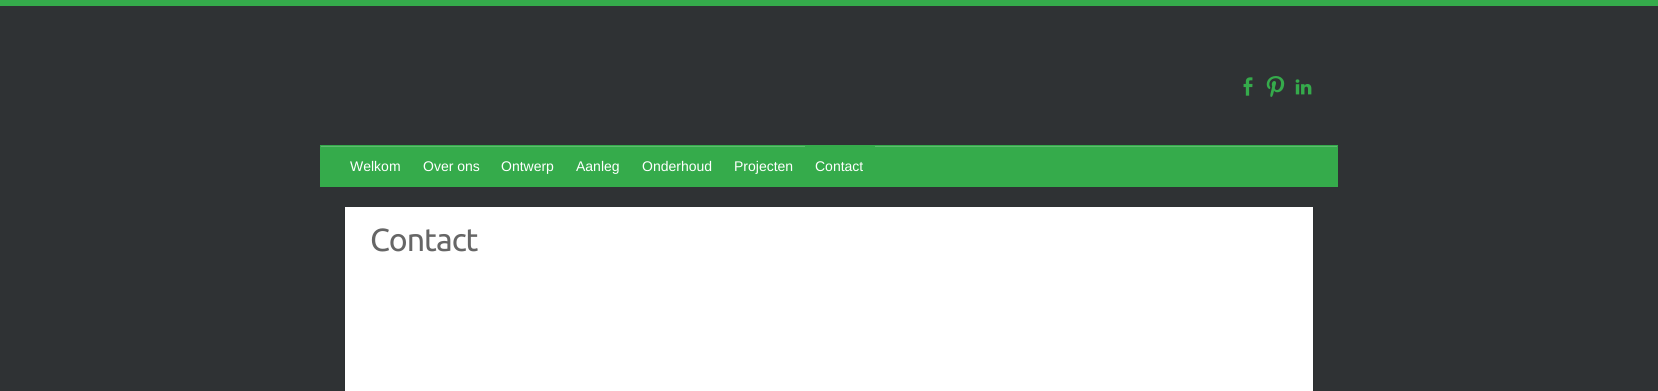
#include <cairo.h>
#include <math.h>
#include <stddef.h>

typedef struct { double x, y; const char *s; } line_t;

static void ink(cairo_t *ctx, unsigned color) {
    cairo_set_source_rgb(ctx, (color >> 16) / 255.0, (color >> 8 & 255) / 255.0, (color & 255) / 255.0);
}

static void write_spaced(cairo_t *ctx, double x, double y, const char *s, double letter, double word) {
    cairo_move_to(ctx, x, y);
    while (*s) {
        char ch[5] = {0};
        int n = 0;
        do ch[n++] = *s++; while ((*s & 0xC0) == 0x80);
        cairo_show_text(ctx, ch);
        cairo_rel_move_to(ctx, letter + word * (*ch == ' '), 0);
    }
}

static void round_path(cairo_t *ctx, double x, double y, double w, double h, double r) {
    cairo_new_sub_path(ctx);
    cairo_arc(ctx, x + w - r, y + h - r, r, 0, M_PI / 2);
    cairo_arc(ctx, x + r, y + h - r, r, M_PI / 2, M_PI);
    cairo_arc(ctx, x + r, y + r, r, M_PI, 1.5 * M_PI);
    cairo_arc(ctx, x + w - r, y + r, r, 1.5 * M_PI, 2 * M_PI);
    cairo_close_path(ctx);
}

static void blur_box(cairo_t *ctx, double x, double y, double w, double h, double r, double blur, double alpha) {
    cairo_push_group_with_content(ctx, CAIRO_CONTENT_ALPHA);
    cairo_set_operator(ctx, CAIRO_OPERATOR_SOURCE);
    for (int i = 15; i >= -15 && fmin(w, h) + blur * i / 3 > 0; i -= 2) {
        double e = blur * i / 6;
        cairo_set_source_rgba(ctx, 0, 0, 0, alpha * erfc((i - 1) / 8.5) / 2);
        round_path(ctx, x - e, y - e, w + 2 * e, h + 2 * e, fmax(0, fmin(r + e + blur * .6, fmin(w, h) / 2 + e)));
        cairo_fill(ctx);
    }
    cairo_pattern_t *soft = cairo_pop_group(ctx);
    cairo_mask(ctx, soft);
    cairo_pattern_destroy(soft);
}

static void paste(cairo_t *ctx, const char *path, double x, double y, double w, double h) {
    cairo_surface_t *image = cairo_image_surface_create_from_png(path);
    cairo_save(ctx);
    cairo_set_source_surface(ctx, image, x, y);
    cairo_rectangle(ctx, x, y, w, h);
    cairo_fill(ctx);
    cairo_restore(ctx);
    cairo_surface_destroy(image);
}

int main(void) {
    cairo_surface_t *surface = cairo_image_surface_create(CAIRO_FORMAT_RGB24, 1658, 391);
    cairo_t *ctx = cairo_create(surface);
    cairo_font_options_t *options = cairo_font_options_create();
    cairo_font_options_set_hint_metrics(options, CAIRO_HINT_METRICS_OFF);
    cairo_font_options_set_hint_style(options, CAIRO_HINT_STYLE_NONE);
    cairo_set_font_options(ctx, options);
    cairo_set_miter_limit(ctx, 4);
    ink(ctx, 0x2F3234);
    cairo_paint(ctx);
    ink(ctx, 0x35AB4B);
    cairo_rectangle(ctx, 0, 0, 1658, 6);
    cairo_fill(ctx);
    paste(ctx, "media/1.png", 1243, 77, 10, 19);
    paste(ctx, "media/2.png", 1266, 76, 19, 21);
    paste(ctx, "media/3.png", 1295, 79, 17, 16);
    cairo_rectangle(ctx, 320, 145, 1018, 42);
    cairo_fill(ctx);
    ink(ctx, 0x5DBC6F);
    cairo_rectangle(ctx, 321, 146, 1016, 1);
    cairo_fill(ctx);
    cairo_select_font_face(ctx, "Liberation Sans", CAIRO_FONT_SLANT_NORMAL, CAIRO_FONT_WEIGHT_NORMAL);
    cairo_set_font_size(ctx, 14);
    ink(ctx, 0xFFFFFF);
    {
        static const line_t items[] = {
            {350, 171, "Welkom"},
            {423, 171, "Over ons"},
            {501, 171, "Ontwerp"},
            {576, 171, "Aanleg"},
            {642, 171, "Onderhoud"},
            {734, 171, "Projecten"},
        };
        for (size_t i = 0; i < sizeof items / sizeof *items; i++) {
            cairo_move_to(ctx, items[i].x, items[i].y);
            cairo_show_text(ctx, items[i].s);
        }
    }
    ink(ctx, 0x35AB4B);
    cairo_rectangle(ctx, 805, 146, 70, 1);
    cairo_fill(ctx);
    ink(ctx, 0xFFFFFF);
    cairo_move_to(ctx, 815, 171);
    cairo_show_text(ctx, "Contact");
    ink(ctx, 0x000000);
    blur_box(ctx, 345, 208, 968, 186, 0, 1, 0.2);
    ink(ctx, 0xFFFFFF);
    cairo_rectangle(ctx, 345, 207, 968, 184);
    cairo_fill(ctx);
    cairo_select_font_face(ctx, "Ubuntu", CAIRO_FONT_SLANT_NORMAL, CAIRO_FONT_WEIGHT_NORMAL);
    cairo_set_font_size(ctx, 32);
    ink(ctx, 0x666666);
    write_spaced(ctx, 370, 251, "Contact", -1, 0);
    cairo_surface_write_to_png(surface, "image.png");
    cairo_font_options_destroy(options);
    cairo_destroy(ctx);
    cairo_surface_destroy(surface);
    return 0;
}
